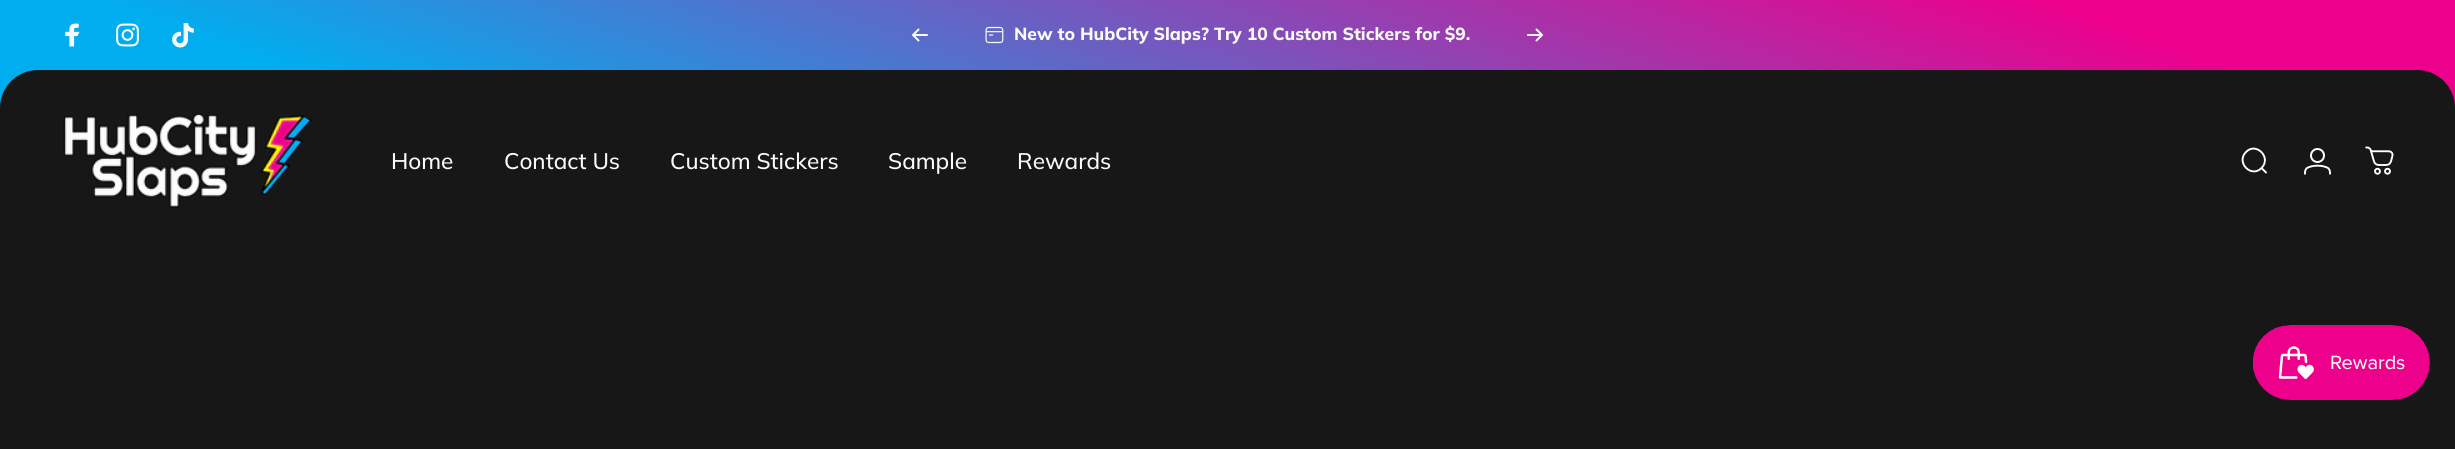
#include <cairo.h>
#include <math.h>
#include <stddef.h>

typedef struct { double x, y; const char *s; } line_t;

static void ink(cairo_t *ctx, unsigned color) {
    cairo_set_source_rgb(ctx, (color >> 16) / 255.0, (color >> 8 & 255) / 255.0, (color & 255) / 255.0);
}

static void paste(cairo_t *ctx, const char *path, double x, double y, double w, double h) {
    cairo_surface_t *image = cairo_image_surface_create_from_png(path);
    cairo_save(ctx);
    cairo_set_source_surface(ctx, image, x, y);
    cairo_rectangle(ctx, x, y, w, h);
    cairo_fill(ctx);
    cairo_restore(ctx);
    cairo_surface_destroy(image);
}

int main(void) {
    cairo_surface_t *surface = cairo_image_surface_create(CAIRO_FORMAT_RGB24, 2455, 449);
    cairo_t *ctx = cairo_create(surface);
    cairo_font_options_t *options = cairo_font_options_create();
    cairo_font_options_set_hint_metrics(options, CAIRO_HINT_METRICS_OFF);
    cairo_font_options_set_hint_style(options, CAIRO_HINT_STYLE_NONE);
    cairo_set_font_options(ctx, options);
    cairo_set_miter_limit(ctx, 4);
    cairo_pattern_t *gradient;
    ink(ctx, 0x171717);
    cairo_paint(ctx);
    gradient = cairo_pattern_create_linear(1382, -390, 1073, 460);
    cairo_pattern_add_color_stop_rgba(gradient, 0.15, 0.925, 0, 0.549, 1);
    cairo_pattern_add_color_stop_rgba(gradient, 0.86, 0, 0.682, 0.937, 1);
    cairo_set_source(ctx, gradient);
    cairo_pattern_destroy(gradient);
    cairo_rectangle(ctx, 0, 0, 2455, 38);
    cairo_fill(ctx);
    gradient = cairo_pattern_create_linear(1388, -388, 1067, 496);
    cairo_pattern_add_color_stop_rgba(gradient, 0.15, 0.925, 0, 0.549, 1);
    cairo_pattern_add_color_stop_rgba(gradient, 0.86, 0, 0.682, 0.937, 1);
    cairo_set_source(ctx, gradient);
    cairo_pattern_destroy(gradient);
    cairo_new_path(ctx);
    cairo_move_to(ctx, 38, 0);
    cairo_line_to(ctx, 2417, 0);
    cairo_curve_to(ctx, 2438, 0, 2455, 17, 2455, 38);
    cairo_line_to(ctx, 2455, 108);
    cairo_line_to(ctx, 0, 108);
    cairo_line_to(ctx, 0, 38);
    cairo_curve_to(ctx, 0, 17, 17, 0, 38, 0);
    cairo_close_path(ctx);
    cairo_fill(ctx);
    paste(ctx, "media/1.png", 65, 23, 15, 24);
    paste(ctx, "media/2.png", 116, 23, 23, 24);
    paste(ctx, "media/3.png", 172, 23, 22, 25);
    cairo_new_path(ctx);
    cairo_move_to(ctx, 918.5, 29.5);
    cairo_line_to(ctx, 913, 35);
    cairo_move_to(ctx, 913, 35);
    cairo_line_to(ctx, 918.5, 40.5);
    cairo_move_to(ctx, 913, 35);
    cairo_line_to(ctx, 927, 35);
    ink(ctx, 0xFAFAFA);
    cairo_set_line_cap(ctx, CAIRO_LINE_CAP_ROUND);
    cairo_set_line_join(ctx, CAIRO_LINE_JOIN_ROUND);
    cairo_stroke(ctx);
    paste(ctx, "media/4.png", 985, 26, 19, 18);
    cairo_select_font_face(ctx, "Muli ExtraBold", CAIRO_FONT_SLANT_NORMAL, CAIRO_FONT_WEIGHT_NORMAL);
    cairo_set_font_size(ctx, 17.5);
    cairo_move_to(ctx, 1014, 40);
    cairo_show_text(ctx, "New to HubCity Slaps? Try 10 Custom Stickers for $9.");
    cairo_new_path(ctx);
    cairo_move_to(ctx, 1528, 35);
    cairo_line_to(ctx, 1542, 35);
    cairo_move_to(ctx, 1542, 35);
    cairo_line_to(ctx, 1536.5, 29.5);
    cairo_move_to(ctx, 1542, 35);
    cairo_line_to(ctx, 1536.5, 40.5);
    cairo_stroke(ctx);
    ink(ctx, 0x171717);
    cairo_new_path(ctx);
    cairo_move_to(ctx, 38, 70);
    cairo_line_to(ctx, 2417, 70);
    cairo_curve_to(ctx, 2438, 70, 2455, 87, 2455, 108);
    cairo_line_to(ctx, 2455, 251);
    cairo_line_to(ctx, 0, 251);
    cairo_line_to(ctx, 0, 108);
    cairo_curve_to(ctx, 0, 87, 17, 70, 38, 70);
    cairo_close_path(ctx);
    cairo_fill(ctx);
    paste(ctx, "media/5.png", 63, 113, 249, 95);
    cairo_select_font_face(ctx, "Muli Medium", CAIRO_FONT_SLANT_NORMAL, CAIRO_FONT_WEIGHT_NORMAL);
    cairo_set_font_size(ctx, 22.5);
    ink(ctx, 0xFAFAFA);
    {
        static const line_t items[] = {
            {391, 169, "Home"},
            {504, 169, "Contact Us"},
            {670, 169, "Custom Stickers"},
            {888, 169, "Sample"},
            {1017, 169, "Rewards"},
        };
        for (size_t i = 0; i < sizeof items / sizeof *items; i++) {
            cairo_move_to(ctx, items[i].x, items[i].y);
            cairo_show_text(ctx, items[i].s);
        }
    }
    cairo_new_path(ctx);
    cairo_move_to(ctx, 2266, 172.5);
    cairo_line_to(ctx, 2261.5, 168);
    cairo_move_to(ctx, 2261.5, 168);
    cairo_curve_to(ctx, 2272, 157.5, 2256, 141.5, 2246, 152);
    cairo_curve_to(ctx, 2235.5, 162.5, 2251.5, 178.5, 2261.5, 168);
    cairo_close_path(ctx);
    ink(ctx, 0xFFFFFF);
    cairo_set_line_width(ctx, 1.9);
    cairo_set_line_join(ctx, CAIRO_LINE_JOIN_MITER);
    cairo_stroke(ctx);
    paste(ctx, "media/6.png", 2304, 148, 27, 27);
    paste(ctx, "media/7.png", 2365, 146, 29, 29);
    paste(ctx, "media/8.png", 2252, 325, 178, 75);
    cairo_surface_write_to_png(surface, "image.png");
    cairo_font_options_destroy(options);
    cairo_destroy(ctx);
    cairo_surface_destroy(surface);
    return 0;
}
